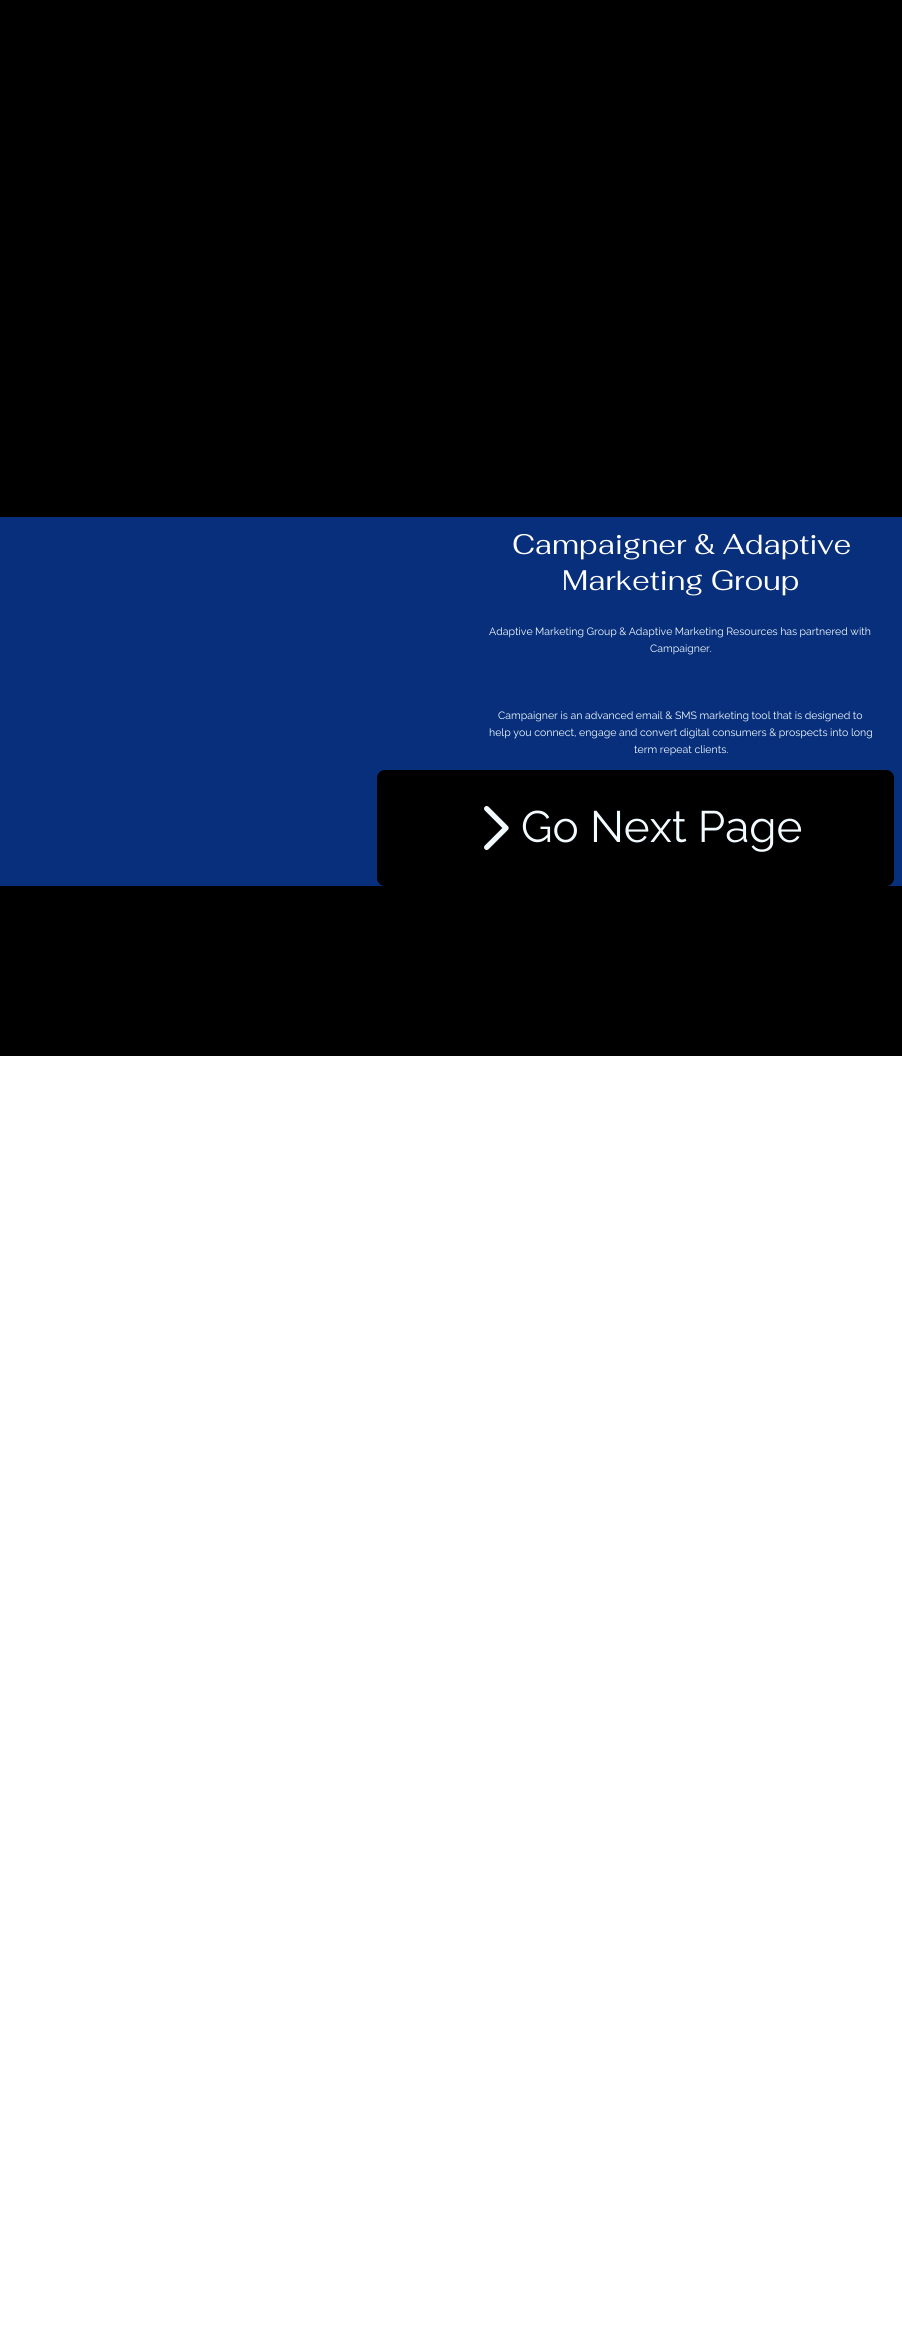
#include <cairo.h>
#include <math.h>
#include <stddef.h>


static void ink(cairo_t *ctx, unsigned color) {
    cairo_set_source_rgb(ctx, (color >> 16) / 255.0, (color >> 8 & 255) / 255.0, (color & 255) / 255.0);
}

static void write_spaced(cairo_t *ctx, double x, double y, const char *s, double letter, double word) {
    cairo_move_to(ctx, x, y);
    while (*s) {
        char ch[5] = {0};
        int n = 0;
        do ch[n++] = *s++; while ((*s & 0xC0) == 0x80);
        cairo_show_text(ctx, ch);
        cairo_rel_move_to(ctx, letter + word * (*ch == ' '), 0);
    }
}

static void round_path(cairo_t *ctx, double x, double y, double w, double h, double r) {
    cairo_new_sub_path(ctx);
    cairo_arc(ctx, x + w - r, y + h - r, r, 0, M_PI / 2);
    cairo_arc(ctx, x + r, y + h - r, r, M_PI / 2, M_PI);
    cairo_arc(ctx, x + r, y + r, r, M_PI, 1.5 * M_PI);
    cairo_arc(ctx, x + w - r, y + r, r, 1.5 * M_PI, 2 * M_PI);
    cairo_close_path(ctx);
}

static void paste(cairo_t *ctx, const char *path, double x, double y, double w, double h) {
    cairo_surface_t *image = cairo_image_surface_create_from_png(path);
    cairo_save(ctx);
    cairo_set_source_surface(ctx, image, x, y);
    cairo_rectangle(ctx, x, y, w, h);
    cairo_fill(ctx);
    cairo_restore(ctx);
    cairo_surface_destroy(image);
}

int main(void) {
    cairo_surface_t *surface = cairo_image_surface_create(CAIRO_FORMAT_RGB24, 902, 2337);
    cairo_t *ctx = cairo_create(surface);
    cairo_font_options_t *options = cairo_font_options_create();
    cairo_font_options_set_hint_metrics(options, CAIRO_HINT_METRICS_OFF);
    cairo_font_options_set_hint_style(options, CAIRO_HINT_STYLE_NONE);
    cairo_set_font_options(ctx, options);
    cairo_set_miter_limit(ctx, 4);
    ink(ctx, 0xFFFFFF);
    cairo_paint(ctx);
    ink(ctx, 0x000000);
    cairo_rectangle(ctx, 0, 0, 902, 517);
    cairo_fill(ctx);
    ink(ctx, 0x082F7B);
    cairo_rectangle(ctx, 0, 517, 902, 369);
    cairo_fill(ctx);
    cairo_select_font_face(ctx, "Fahkwang", CAIRO_FONT_SLANT_NORMAL, CAIRO_FONT_WEIGHT_NORMAL);
    cairo_set_font_size(ctx, 28.25);
    ink(ctx, 0xFFFFFF);
    cairo_move_to(ctx, 512, 554);
    cairo_show_text(ctx, "Campaigner & Adaptive");
    cairo_move_to(ctx, 562, 590);
    cairo_show_text(ctx, "Marketing Group");
    cairo_select_font_face(ctx, "Raleway", CAIRO_FONT_SLANT_NORMAL, CAIRO_FONT_WEIGHT_NORMAL);
    cairo_set_font_size(ctx, 10.55);
    ink(ctx, 0xF2FBFF);
    write_spaced(ctx, 489, 635, "Adaptive Marketing Group & Adaptive Marketing Resources has partnered with", 0, -0.25);
    cairo_move_to(ctx, 650, 652);
    cairo_show_text(ctx, "Campaigner.");
    write_spaced(ctx, 498, 719, "Campaigner is an advanced email & SMS marketing tool that is designed to", 0, -0.1);
    write_spaced(ctx, 489, 736, "help you connect, engage and convert digital consumers & prospects into long", 0, -0.1);
    cairo_move_to(ctx, 634, 753);
    cairo_show_text(ctx, "term repeat clients.");
    ink(ctx, 0x000000);
    round_path(ctx, 377, 770, 517, 116, 8);
    cairo_fill(ctx);
    paste(ctx, "media/1.png", 484, 806, 25, 44);
    cairo_set_font_size(ctx, 44);
    ink(ctx, 0xF2FBFF);
    cairo_move_to(ctx, 521, 842);
    cairo_show_text(ctx, "Go Next Page");
    ink(ctx, 0x000000);
    cairo_rectangle(ctx, 0, 886, 902, 170);
    cairo_fill(ctx);
    cairo_surface_write_to_png(surface, "image.png");
    cairo_font_options_destroy(options);
    cairo_destroy(ctx);
    cairo_surface_destroy(surface);
    return 0;
}
